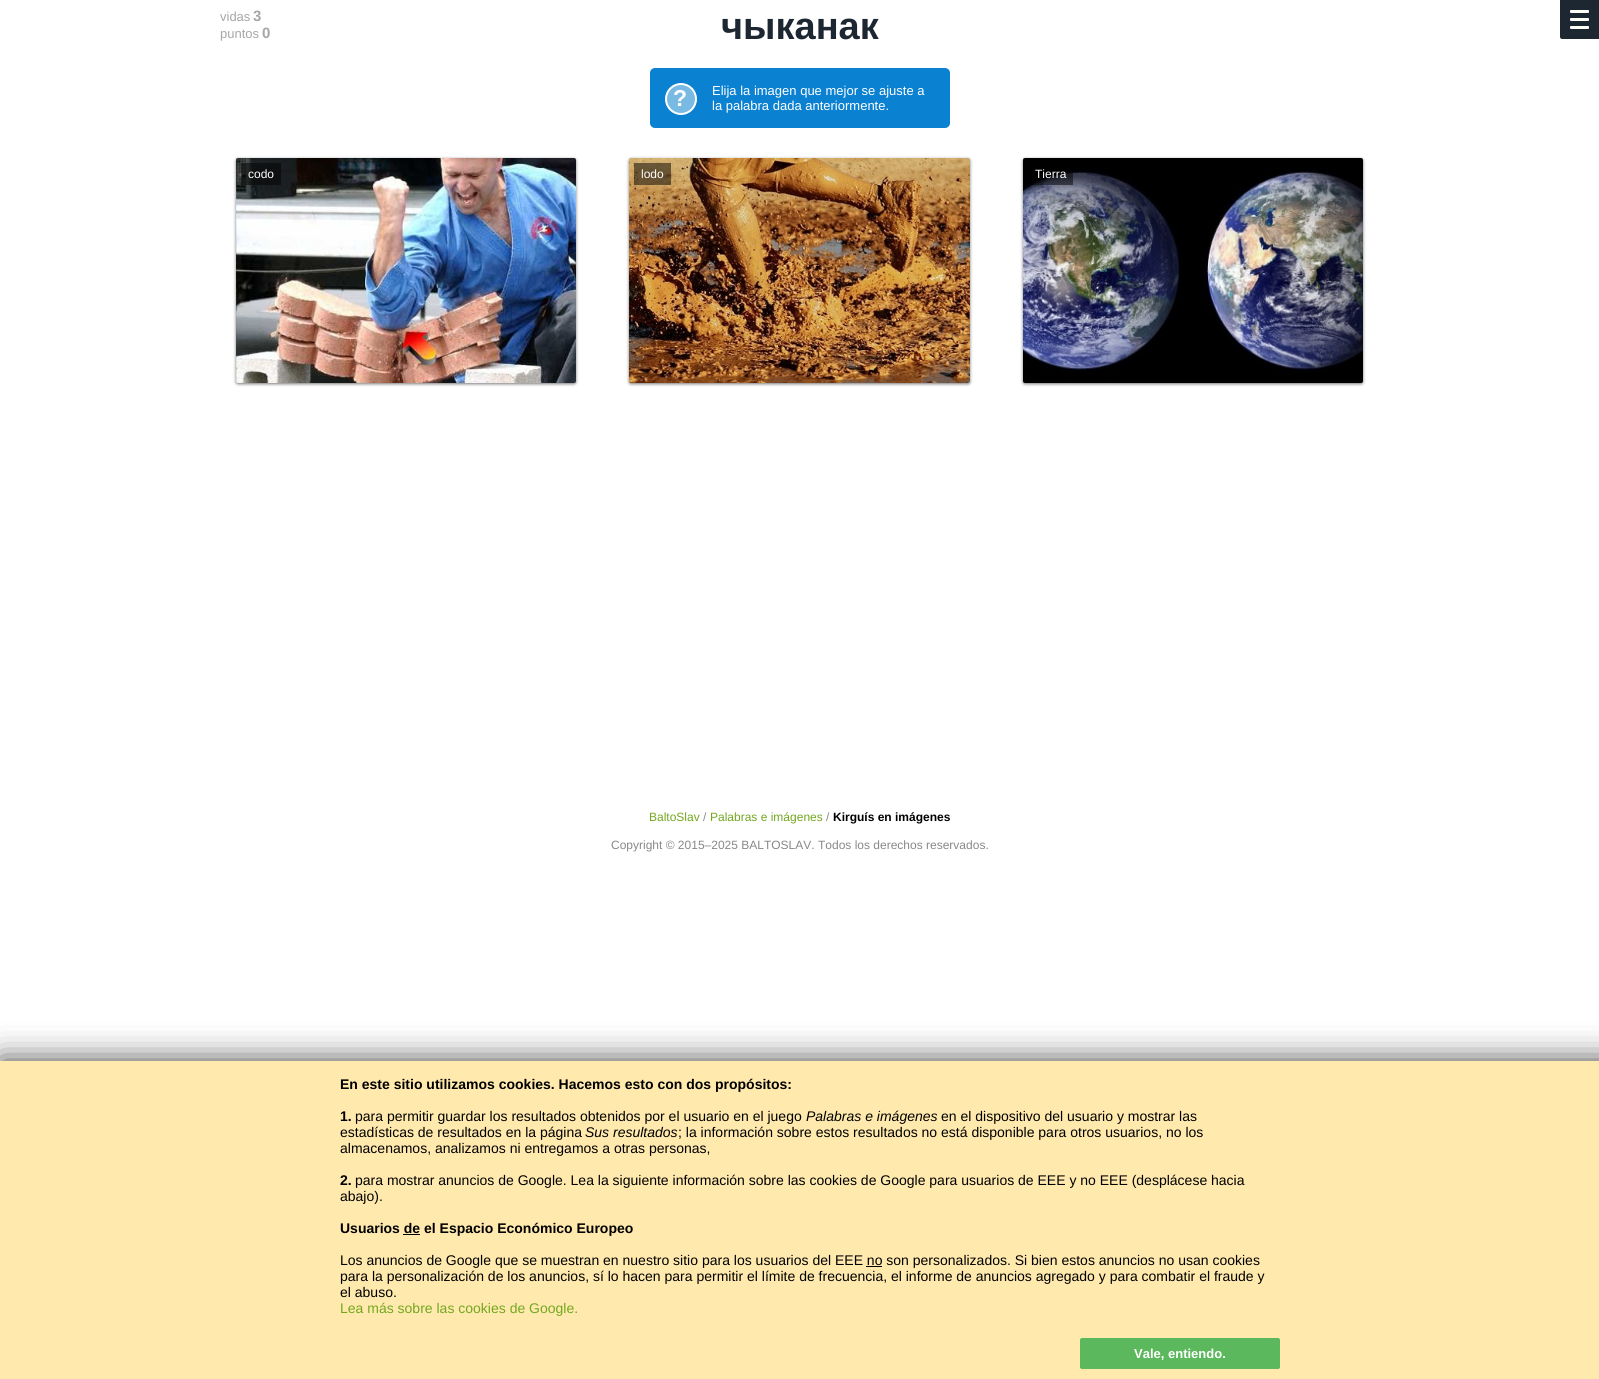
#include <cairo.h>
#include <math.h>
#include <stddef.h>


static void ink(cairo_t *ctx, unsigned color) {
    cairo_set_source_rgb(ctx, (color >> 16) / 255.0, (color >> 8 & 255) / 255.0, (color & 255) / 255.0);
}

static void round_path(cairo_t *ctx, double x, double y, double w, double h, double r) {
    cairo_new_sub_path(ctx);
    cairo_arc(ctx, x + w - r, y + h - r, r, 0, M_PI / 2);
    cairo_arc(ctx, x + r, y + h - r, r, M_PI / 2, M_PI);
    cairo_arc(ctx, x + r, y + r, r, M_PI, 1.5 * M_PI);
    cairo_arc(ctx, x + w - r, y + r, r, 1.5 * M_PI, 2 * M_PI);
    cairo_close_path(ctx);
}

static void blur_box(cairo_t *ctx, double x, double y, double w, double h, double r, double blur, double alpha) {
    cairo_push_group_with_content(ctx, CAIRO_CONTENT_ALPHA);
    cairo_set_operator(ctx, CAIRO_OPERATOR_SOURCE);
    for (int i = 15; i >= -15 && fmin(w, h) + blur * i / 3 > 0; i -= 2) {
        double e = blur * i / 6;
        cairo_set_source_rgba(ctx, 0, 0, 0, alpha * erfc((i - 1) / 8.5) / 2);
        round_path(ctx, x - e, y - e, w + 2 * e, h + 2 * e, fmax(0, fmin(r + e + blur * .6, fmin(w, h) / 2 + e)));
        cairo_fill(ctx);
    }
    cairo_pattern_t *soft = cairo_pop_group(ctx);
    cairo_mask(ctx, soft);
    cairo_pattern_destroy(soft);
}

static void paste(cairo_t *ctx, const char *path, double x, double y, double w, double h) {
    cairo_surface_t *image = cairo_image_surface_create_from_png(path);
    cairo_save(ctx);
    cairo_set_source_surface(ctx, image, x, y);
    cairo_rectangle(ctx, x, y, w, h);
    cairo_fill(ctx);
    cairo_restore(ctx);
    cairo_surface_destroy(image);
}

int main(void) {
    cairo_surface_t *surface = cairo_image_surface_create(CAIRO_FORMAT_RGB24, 1599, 1379);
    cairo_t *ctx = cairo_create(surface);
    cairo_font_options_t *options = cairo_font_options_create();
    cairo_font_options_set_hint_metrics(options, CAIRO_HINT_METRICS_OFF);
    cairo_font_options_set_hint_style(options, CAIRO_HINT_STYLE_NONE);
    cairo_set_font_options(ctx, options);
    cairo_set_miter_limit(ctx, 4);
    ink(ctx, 0xFFFFFF);
    cairo_paint(ctx);
    cairo_select_font_face(ctx, "Liberation Sans", CAIRO_FONT_SLANT_NORMAL, CAIRO_FONT_WEIGHT_NORMAL);
    cairo_set_font_size(ctx, 13);
    ink(ctx, 0xA6A6A6);
    cairo_move_to(ctx, 220, 21);
    cairo_show_text(ctx, "vidas");
    cairo_select_font_face(ctx, "Liberation Sans", CAIRO_FONT_SLANT_NORMAL, CAIRO_FONT_WEIGHT_BOLD);
    cairo_set_font_size(ctx, 15);
    cairo_move_to(ctx, 253, 21);
    cairo_show_text(ctx, "3");
    cairo_select_font_face(ctx, "Liberation Sans", CAIRO_FONT_SLANT_NORMAL, CAIRO_FONT_WEIGHT_NORMAL);
    cairo_set_font_size(ctx, 13);
    cairo_move_to(ctx, 220, 38);
    cairo_show_text(ctx, "puntos");
    cairo_select_font_face(ctx, "Liberation Sans", CAIRO_FONT_SLANT_NORMAL, CAIRO_FONT_WEIGHT_BOLD);
    cairo_set_font_size(ctx, 15);
    cairo_move_to(ctx, 262, 38);
    cairo_show_text(ctx, "0");
    cairo_set_font_size(ctx, 38);
    ink(ctx, 0x1D2731);
    cairo_move_to(ctx, 721, 39);
    cairo_show_text(ctx, "чыканак");
    ink(ctx, 0x0A81D1);
    round_path(ctx, 650, 68, 300, 60, 5);
    cairo_fill(ctx);
    ink(ctx, 0x79BAE5);
    cairo_arc(ctx, 681, 99, 15, 0, 2 * M_PI);
    cairo_fill_preserve(ctx);
    ink(ctx, 0xFFFFFF);
    cairo_stroke(ctx);
    cairo_set_font_size(ctx, 23);
    cairo_move_to(ctx, 673, 106);
    cairo_show_text(ctx, "?");
    cairo_select_font_face(ctx, "Liberation Sans", CAIRO_FONT_SLANT_NORMAL, CAIRO_FONT_WEIGHT_NORMAL);
    cairo_set_font_size(ctx, 13);
    cairo_move_to(ctx, 712, 95);
    cairo_show_text(ctx, "Elija la imagen que mejor se ajuste a");
    cairo_move_to(ctx, 712, 110);
    cairo_show_text(ctx, "la palabra dada anteriormente.");
    ink(ctx, 0x777777);
    blur_box(ctx, 236, 159, 340, 225, 2, 1.5, 1);
    paste(ctx, "media/1.png", 236, 158, 340, 225);
    cairo_set_source_rgba(ctx, 0, 0, 0, 0.5);
    cairo_rectangle(ctx, 241, 163, 40, 22);
    cairo_fill(ctx);
    cairo_set_font_size(ctx, 12);
    ink(ctx, 0xFFFFFF);
    cairo_move_to(ctx, 248, 178);
    cairo_show_text(ctx, "codo");
    ink(ctx, 0x777777);
    blur_box(ctx, 629, 159, 341, 225, 2, 1.5, 1);
    paste(ctx, "media/2.png", 629, 158, 341, 225);
    cairo_set_source_rgba(ctx, 0, 0, 0, 0.5);
    cairo_rectangle(ctx, 634, 163, 37, 22);
    cairo_fill(ctx);
    ink(ctx, 0xFFFFFF);
    cairo_move_to(ctx, 641, 178);
    cairo_show_text(ctx, "lodo");
    ink(ctx, 0x777777);
    blur_box(ctx, 1023, 159, 340, 225, 2, 1.5, 1);
    paste(ctx, "media/3.png", 1023, 158, 340, 225);
    cairo_set_source_rgba(ctx, 0, 0, 0, 0.5);
    cairo_rectangle(ctx, 1030, 172, 43, 13);
    cairo_fill(ctx);
    ink(ctx, 0xFFFFFF);
    cairo_move_to(ctx, 1035, 178);
    cairo_show_text(ctx, "Tierra");
    ink(ctx, 0x1D2731);
    cairo_new_path(ctx);
    cairo_move_to(ctx, 1560, 0);
    cairo_line_to(ctx, 1599, 0);
    cairo_line_to(ctx, 1599, 39);
    cairo_line_to(ctx, 1562, 39);
    cairo_curve_to(ctx, 1561, 39, 1560, 38, 1560, 37);
    cairo_close_path(ctx);
    cairo_fill(ctx);
    ink(ctx, 0xFFFFFA);
    round_path(ctx, 1570, 10, 19, 3, 1);
    cairo_fill(ctx);
    round_path(ctx, 1570, 18, 19, 3, 1);
    cairo_fill(ctx);
    round_path(ctx, 1570, 26, 19, 3, 1);
    cairo_fill(ctx);
    ink(ctx, 0x73A720);
    cairo_move_to(ctx, 649, 821);
    cairo_show_text(ctx, "BaltoSlav");
    ink(ctx, 0x888888);
    cairo_move_to(ctx, 703, 821);
    cairo_show_text(ctx, "/");
    ink(ctx, 0x73A720);
    cairo_move_to(ctx, 710, 821);
    cairo_show_text(ctx, "Palabras e imágenes");
    ink(ctx, 0x888888);
    cairo_move_to(ctx, 826, 821);
    cairo_show_text(ctx, "/");
    cairo_select_font_face(ctx, "Liberation Sans", CAIRO_FONT_SLANT_NORMAL, CAIRO_FONT_WEIGHT_BOLD);
    ink(ctx, 0x000000);
    cairo_move_to(ctx, 833, 821);
    cairo_show_text(ctx, "Kirguís en imágenes");
    cairo_select_font_face(ctx, "Liberation Sans", CAIRO_FONT_SLANT_NORMAL, CAIRO_FONT_WEIGHT_NORMAL);
    ink(ctx, 0x888888);
    cairo_move_to(ctx, 611, 849);
    cairo_show_text(ctx, "Copyright © 2015–2025 BALTOSLAV. Todos los derechos reservados.");
    ink(ctx, 0x444444);
    blur_box(ctx, 0, 1061, 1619, 318, 0, 16.5, 1);
    ink(ctx, 0xFFE9AD);
    cairo_rectangle(ctx, 0, 1061, 1599, 318);
    cairo_fill(ctx);
    cairo_select_font_face(ctx, "Liberation Sans", CAIRO_FONT_SLANT_NORMAL, CAIRO_FONT_WEIGHT_BOLD);
    cairo_set_font_size(ctx, 14);
    ink(ctx, 0x000000);
    cairo_move_to(ctx, 340, 1089);
    cairo_show_text(ctx, "En este sitio utilizamos cookies. Hacemos esto con dos propósitos:");
    cairo_move_to(ctx, 340, 1121);
    cairo_show_text(ctx, "1.");
    cairo_select_font_face(ctx, "Liberation Sans", CAIRO_FONT_SLANT_NORMAL, CAIRO_FONT_WEIGHT_NORMAL);
    cairo_move_to(ctx, 355, 1121);
    cairo_show_text(ctx, "para permitir guardar los resultados obtenidos por el usuario en el juego");
    cairo_select_font_face(ctx, "Liberation Sans", CAIRO_FONT_SLANT_ITALIC, CAIRO_FONT_WEIGHT_NORMAL);
    cairo_move_to(ctx, 806, 1121);
    cairo_show_text(ctx, "Palabras e imágenes");
    cairo_select_font_face(ctx, "Liberation Sans", CAIRO_FONT_SLANT_NORMAL, CAIRO_FONT_WEIGHT_NORMAL);
    cairo_move_to(ctx, 941, 1121);
    cairo_show_text(ctx, "en el dispositivo del usuario y mostrar las");
    cairo_move_to(ctx, 340, 1137);
    cairo_show_text(ctx, "estadísticas de resultados en la página");
    cairo_select_font_face(ctx, "Liberation Sans", CAIRO_FONT_SLANT_ITALIC, CAIRO_FONT_WEIGHT_NORMAL);
    cairo_move_to(ctx, 585, 1137);
    cairo_show_text(ctx, "Sus resultados");
    cairo_select_font_face(ctx, "Liberation Sans", CAIRO_FONT_SLANT_NORMAL, CAIRO_FONT_WEIGHT_NORMAL);
    cairo_move_to(ctx, 678, 1137);
    cairo_show_text(ctx, "; la información sobre estos resultados no está disponible para otros usuarios, no los");
    cairo_move_to(ctx, 340, 1153);
    cairo_show_text(ctx, "almacenamos, analizamos ni entregamos a otras personas,");
    cairo_select_font_face(ctx, "Liberation Sans", CAIRO_FONT_SLANT_NORMAL, CAIRO_FONT_WEIGHT_BOLD);
    cairo_move_to(ctx, 340, 1185);
    cairo_show_text(ctx, "2.");
    cairo_select_font_face(ctx, "Liberation Sans", CAIRO_FONT_SLANT_NORMAL, CAIRO_FONT_WEIGHT_NORMAL);
    cairo_move_to(ctx, 355, 1185);
    cairo_show_text(ctx, "para mostrar anuncios de Google. Lea la siguiente información sobre las cookies de Google para usuarios de EEE y no EEE (desplácese hacia");
    cairo_move_to(ctx, 340, 1201);
    cairo_show_text(ctx, "abajo).");
    cairo_select_font_face(ctx, "Liberation Sans", CAIRO_FONT_SLANT_NORMAL, CAIRO_FONT_WEIGHT_BOLD);
    cairo_move_to(ctx, 340, 1233);
    cairo_show_text(ctx, "Usuarios de el Espacio Económico Europeo");
    cairo_rectangle(ctx, 403, 1234, 17, 1);
    cairo_fill(ctx);
    cairo_select_font_face(ctx, "Liberation Sans", CAIRO_FONT_SLANT_NORMAL, CAIRO_FONT_WEIGHT_NORMAL);
    cairo_move_to(ctx, 340, 1265);
    cairo_show_text(ctx, "Los anuncios de Google que se muestran en nuestro sitio para los usuarios del EEE no son personalizados. Si bien estos anuncios no usan cookies");
    cairo_rectangle(ctx, 866, 1266, 16, 1);
    cairo_fill(ctx);
    cairo_move_to(ctx, 340, 1281);
    cairo_show_text(ctx, "para la personalización de los anuncios, sí lo hacen para permitir el límite de frecuencia, el informe de anuncios agregado y para combatir el fraude y");
    cairo_move_to(ctx, 340, 1297);
    cairo_show_text(ctx, "el abuso.");
    ink(ctx, 0x73A720);
    cairo_move_to(ctx, 340, 1313);
    cairo_show_text(ctx, "Lea más sobre las cookies de Google.");
    ink(ctx, 0x5CB85C);
    round_path(ctx, 1080, 1338, 200, 31, 2);
    cairo_fill(ctx);
    cairo_select_font_face(ctx, "Liberation Sans", CAIRO_FONT_SLANT_NORMAL, CAIRO_FONT_WEIGHT_BOLD);
    cairo_set_font_size(ctx, 13);
    ink(ctx, 0xFFFFFF);
    cairo_move_to(ctx, 1134, 1358);
    cairo_show_text(ctx, "Vale, entiendo.");
    cairo_surface_write_to_png(surface, "image.png");
    cairo_font_options_destroy(options);
    cairo_destroy(ctx);
    cairo_surface_destroy(surface);
    return 0;
}
